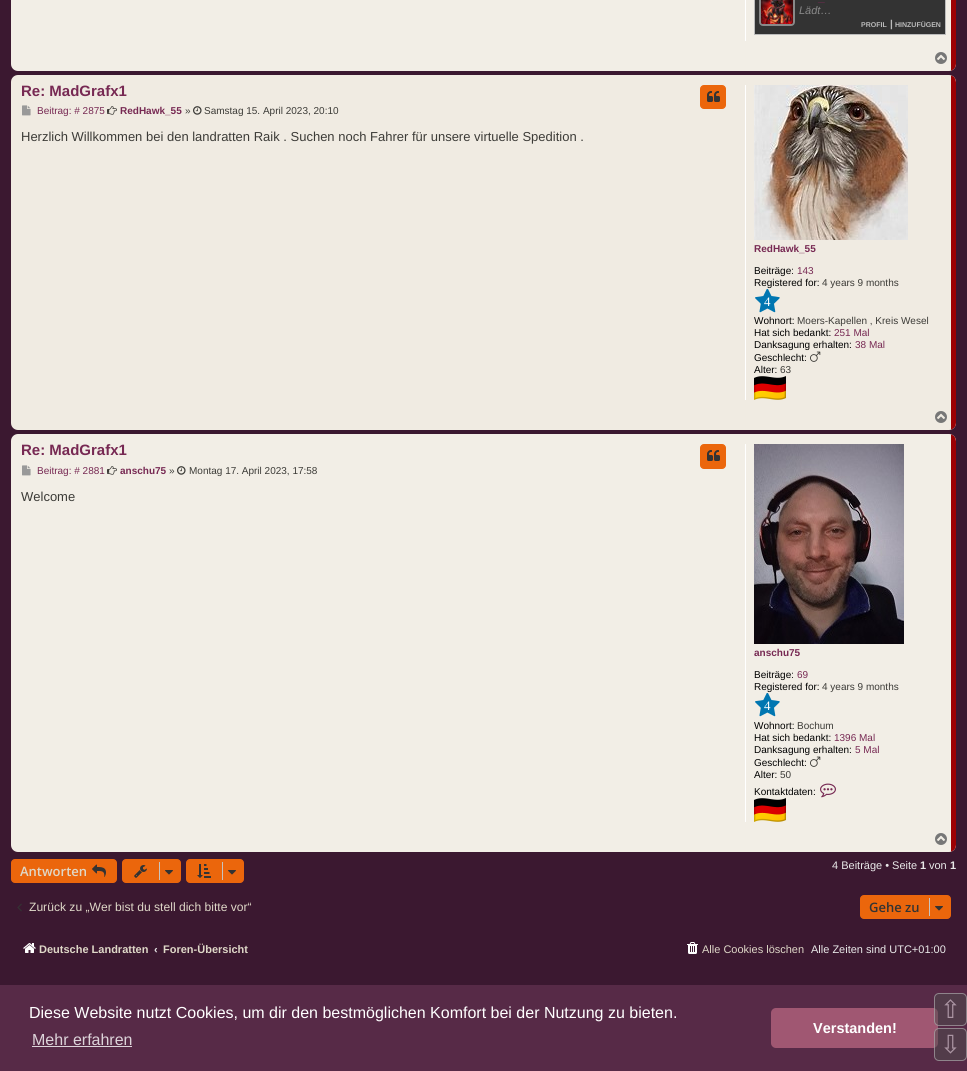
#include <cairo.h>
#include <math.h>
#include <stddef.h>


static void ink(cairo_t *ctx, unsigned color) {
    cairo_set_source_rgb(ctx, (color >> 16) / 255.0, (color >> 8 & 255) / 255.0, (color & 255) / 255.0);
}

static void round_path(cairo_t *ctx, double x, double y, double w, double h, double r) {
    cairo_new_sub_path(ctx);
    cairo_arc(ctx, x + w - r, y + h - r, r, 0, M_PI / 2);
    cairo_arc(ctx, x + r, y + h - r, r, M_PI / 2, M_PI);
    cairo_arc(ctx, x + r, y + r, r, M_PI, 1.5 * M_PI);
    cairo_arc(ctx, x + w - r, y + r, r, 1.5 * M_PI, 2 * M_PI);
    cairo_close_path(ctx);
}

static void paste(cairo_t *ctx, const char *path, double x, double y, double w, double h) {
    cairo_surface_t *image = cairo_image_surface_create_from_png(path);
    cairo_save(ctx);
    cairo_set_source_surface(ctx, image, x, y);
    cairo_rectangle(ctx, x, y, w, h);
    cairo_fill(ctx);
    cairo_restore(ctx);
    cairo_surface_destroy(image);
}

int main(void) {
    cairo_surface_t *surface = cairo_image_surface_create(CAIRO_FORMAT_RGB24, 967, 1071);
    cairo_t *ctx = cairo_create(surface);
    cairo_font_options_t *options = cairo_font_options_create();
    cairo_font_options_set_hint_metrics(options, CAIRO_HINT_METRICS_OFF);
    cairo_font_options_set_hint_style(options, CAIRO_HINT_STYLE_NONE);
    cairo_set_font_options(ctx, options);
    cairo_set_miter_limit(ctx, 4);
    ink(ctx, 0x3B1830);
    cairo_paint(ctx);
    ink(ctx, 0xF2EEE6);
    round_path(ctx, 11, -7, 945, 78, 7);
    cairo_fill(ctx);
    paste(ctx, "media/1.png", 951, 0, 5, 71);
    ink(ctx, 0xFFFFFF);
    cairo_rectangle(ctx, 745, 0, 1, 41);
    cairo_fill(ctx);
    ink(ctx, 0x333333);
    cairo_rectangle(ctx, 754.5, -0.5, 191, 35);
    cairo_fill_preserve(ctx);
    ink(ctx, 0xBBBBBB);
    cairo_set_line_width(ctx, 1);
    cairo_stroke(ctx);
    round_path(ctx, 760, -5, 34, 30, 3);
    ink(ctx, 0x898989);
    cairo_set_line_width(ctx, 2);
    cairo_stroke(ctx);
    paste(ctx, "media/2.png", 761, 0, 32, 24);
    cairo_select_font_face(ctx, "Liberation Sans", CAIRO_FONT_SLANT_NORMAL, CAIRO_FONT_WEIGHT_BOLD);
    cairo_set_font_size(ctx, 12);
    ink(ctx, 0x772953);
    cairo_move_to(ctx, 818, 1);
    cairo_show_text(ctx, "_");
    cairo_select_font_face(ctx, "Liberation Sans", CAIRO_FONT_SLANT_ITALIC, CAIRO_FONT_WEIGHT_NORMAL);
    cairo_set_font_size(ctx, 11);
    ink(ctx, 0x898989);
    cairo_move_to(ctx, 799, 14);
    cairo_show_text(ctx, "Lädt…");
    cairo_select_font_face(ctx, "Liberation Sans", CAIRO_FONT_SLANT_NORMAL, CAIRO_FONT_WEIGHT_BOLD);
    cairo_set_font_size(ctx, 7);
    ink(ctx, 0xBBBBBB);
    cairo_move_to(ctx, 861, 27);
    cairo_show_text(ctx, "PROFIL");
    cairo_set_font_size(ctx, 10);
    cairo_move_to(ctx, 890, 27);
    cairo_show_text(ctx, "|");
    cairo_set_font_size(ctx, 7);
    cairo_move_to(ctx, 895, 27);
    cairo_show_text(ctx, "HINZUFÜGEN");
    paste(ctx, "media/3.png", 935, 52, 12, 12);
    ink(ctx, 0xF0EBE2);
    round_path(ctx, 11, 75, 945, 355, 7);
    cairo_fill(ctx);
    paste(ctx, "media/4.png", 951, 75, 5, 355);
    cairo_set_font_size(ctx, 15);
    ink(ctx, 0x772953);
    cairo_move_to(ctx, 21, 96);
    cairo_show_text(ctx, "Re: MadGrafx1");
    ink(ctx, 0xEB660C);
    round_path(ctx, 700.5, 85.5, 25, 23, 3.5);
    cairo_fill_preserve(ctx);
    cairo_set_line_width(ctx, 1);
    cairo_stroke(ctx);
    paste(ctx, "media/5.png", 707, 91, 13, 11);
    paste(ctx, "media/6.png", 22, 105, 9, 11);
    cairo_select_font_face(ctx, "Liberation Sans", CAIRO_FONT_SLANT_NORMAL, CAIRO_FONT_WEIGHT_NORMAL);
    cairo_set_font_size(ctx, 10);
    ink(ctx, 0x772953);
    cairo_move_to(ctx, 37, 114);
    cairo_show_text(ctx, "Beitrag: # 2875");
    paste(ctx, "media/7.png", 107, 106, 10, 9);
    cairo_select_font_face(ctx, "Liberation Sans", CAIRO_FONT_SLANT_NORMAL, CAIRO_FONT_WEIGHT_BOLD);
    cairo_move_to(ctx, 120, 114);
    cairo_show_text(ctx, "RedHawk_55");
    cairo_select_font_face(ctx, "Liberation Sans", CAIRO_FONT_SLANT_NORMAL, CAIRO_FONT_WEIGHT_NORMAL);
    ink(ctx, 0x3C3B37);
    cairo_move_to(ctx, 185, 114);
    cairo_show_text(ctx, "»");
    paste(ctx, "media/8.png", 193, 106, 9, 9);
    cairo_move_to(ctx, 204, 114);
    cairo_show_text(ctx, "Samstag 15. April 2023, 20:10");
    cairo_set_font_size(ctx, 13);
    cairo_move_to(ctx, 21, 141);
    cairo_show_text(ctx, "Herzlich Willkommen bei den landratten Raik . Suchen noch Fahrer für unsere virtuelle Spedition .");
    ink(ctx, 0xFFFFFF);
    cairo_rectangle(ctx, 745, 85, 1, 315);
    cairo_fill(ctx);
    paste(ctx, "media/9.png", 754, 85, 154, 155);
    cairo_select_font_face(ctx, "Liberation Sans", CAIRO_FONT_SLANT_NORMAL, CAIRO_FONT_WEIGHT_BOLD);
    cairo_set_font_size(ctx, 10);
    ink(ctx, 0x772953);
    cairo_move_to(ctx, 754, 252);
    cairo_show_text(ctx, "RedHawk_55");
    cairo_select_font_face(ctx, "Liberation Sans", CAIRO_FONT_SLANT_NORMAL, CAIRO_FONT_WEIGHT_NORMAL);
    ink(ctx, 0x000000);
    cairo_move_to(ctx, 754, 274);
    cairo_show_text(ctx, "Beiträge:");
    ink(ctx, 0x772953);
    cairo_move_to(ctx, 797, 274);
    cairo_show_text(ctx, "143");
    ink(ctx, 0x000000);
    cairo_move_to(ctx, 754, 286);
    cairo_show_text(ctx, "Registered for:");
    ink(ctx, 0x3C3B37);
    cairo_move_to(ctx, 822, 286);
    cairo_show_text(ctx, "4 years 9 months");
    paste(ctx, "media/10.png", 755, 289, 25, 24);
    cairo_select_font_face(ctx, "Liberation Serif", CAIRO_FONT_SLANT_NORMAL, CAIRO_FONT_WEIGHT_NORMAL);
    cairo_set_font_size(ctx, 13);
    ink(ctx, 0xFFFFFF);
    cairo_move_to(ctx, 764, 306);
    cairo_show_text(ctx, "4");
    cairo_select_font_face(ctx, "Liberation Sans", CAIRO_FONT_SLANT_NORMAL, CAIRO_FONT_WEIGHT_NORMAL);
    cairo_set_font_size(ctx, 10);
    ink(ctx, 0x000000);
    cairo_move_to(ctx, 754, 324);
    cairo_show_text(ctx, "Wohnort:");
    ink(ctx, 0x3C3B37);
    cairo_move_to(ctx, 797, 324);
    cairo_show_text(ctx, "Moers-Kapellen , Kreis Wesel");
    ink(ctx, 0x000000);
    cairo_move_to(ctx, 754, 336);
    cairo_show_text(ctx, "Hat sich bedankt:");
    ink(ctx, 0x772953);
    cairo_move_to(ctx, 834, 336);
    cairo_show_text(ctx, "251 Mal");
    ink(ctx, 0x000000);
    cairo_move_to(ctx, 754, 348);
    cairo_show_text(ctx, "Danksagung erhalten:");
    ink(ctx, 0x772953);
    cairo_move_to(ctx, 855, 348);
    cairo_show_text(ctx, "38 Mal");
    ink(ctx, 0x000000);
    cairo_move_to(ctx, 754, 361);
    cairo_show_text(ctx, "Geschlecht:");
    paste(ctx, "media/11.png", 810, 351, 11, 11);
    cairo_move_to(ctx, 754, 373);
    cairo_show_text(ctx, "Alter:");
    ink(ctx, 0x3C3B37);
    cairo_move_to(ctx, 780, 373);
    cairo_show_text(ctx, "63");
    paste(ctx, "media/12.png", 754, 376, 32, 24);
    paste(ctx, "media/13.png", 935, 411, 12, 12);
    ink(ctx, 0xF2EEE6);
    round_path(ctx, 11, 434, 945, 418, 7);
    cairo_fill(ctx);
    paste(ctx, "media/14.png", 951, 434, 5, 418);
    cairo_select_font_face(ctx, "Liberation Sans", CAIRO_FONT_SLANT_NORMAL, CAIRO_FONT_WEIGHT_BOLD);
    cairo_set_font_size(ctx, 15);
    ink(ctx, 0x772953);
    cairo_move_to(ctx, 21, 455);
    cairo_show_text(ctx, "Re: MadGrafx1");
    ink(ctx, 0xEB660C);
    round_path(ctx, 700.5, 444.5, 25, 24, 3.5);
    cairo_fill_preserve(ctx);
    cairo_stroke(ctx);
    paste(ctx, "media/5.png", 707, 450, 13, 11);
    paste(ctx, "media/15.png", 22, 465, 9, 11);
    cairo_select_font_face(ctx, "Liberation Sans", CAIRO_FONT_SLANT_NORMAL, CAIRO_FONT_WEIGHT_NORMAL);
    cairo_set_font_size(ctx, 10);
    ink(ctx, 0x772953);
    cairo_move_to(ctx, 37, 474);
    cairo_show_text(ctx, "Beitrag: # 2881");
    paste(ctx, "media/16.png", 107, 466, 10, 9);
    cairo_select_font_face(ctx, "Liberation Sans", CAIRO_FONT_SLANT_NORMAL, CAIRO_FONT_WEIGHT_BOLD);
    cairo_move_to(ctx, 120, 474);
    cairo_show_text(ctx, "anschu75");
    cairo_select_font_face(ctx, "Liberation Sans", CAIRO_FONT_SLANT_NORMAL, CAIRO_FONT_WEIGHT_NORMAL);
    ink(ctx, 0x3C3B37);
    cairo_move_to(ctx, 169, 474);
    cairo_show_text(ctx, "»");
    paste(ctx, "media/17.png", 177, 466, 9, 9);
    cairo_move_to(ctx, 189, 474);
    cairo_show_text(ctx, "Montag 17. April 2023, 17:58");
    cairo_set_font_size(ctx, 13);
    cairo_move_to(ctx, 21, 501);
    cairo_show_text(ctx, "Welcome");
    ink(ctx, 0xFFFFFF);
    cairo_rectangle(ctx, 745, 444, 1, 378);
    cairo_fill(ctx);
    paste(ctx, "media/18.png", 754, 444, 150, 200);
    cairo_select_font_face(ctx, "Liberation Sans", CAIRO_FONT_SLANT_NORMAL, CAIRO_FONT_WEIGHT_BOLD);
    cairo_set_font_size(ctx, 10);
    ink(ctx, 0x772953);
    cairo_move_to(ctx, 754, 656);
    cairo_show_text(ctx, "anschu75");
    cairo_select_font_face(ctx, "Liberation Sans", CAIRO_FONT_SLANT_NORMAL, CAIRO_FONT_WEIGHT_NORMAL);
    ink(ctx, 0x000000);
    cairo_move_to(ctx, 754, 678);
    cairo_show_text(ctx, "Beiträge:");
    ink(ctx, 0x772953);
    cairo_move_to(ctx, 797, 678);
    cairo_show_text(ctx, "69");
    ink(ctx, 0x000000);
    cairo_move_to(ctx, 754, 690);
    cairo_show_text(ctx, "Registered for:");
    ink(ctx, 0x3C3B37);
    cairo_move_to(ctx, 822, 690);
    cairo_show_text(ctx, "4 years 9 months");
    paste(ctx, "media/19.png", 755, 693, 25, 24);
    cairo_select_font_face(ctx, "Liberation Serif", CAIRO_FONT_SLANT_NORMAL, CAIRO_FONT_WEIGHT_NORMAL);
    cairo_set_font_size(ctx, 13);
    ink(ctx, 0xFFFFFF);
    cairo_move_to(ctx, 764, 710);
    cairo_show_text(ctx, "4");
    cairo_select_font_face(ctx, "Liberation Sans", CAIRO_FONT_SLANT_NORMAL, CAIRO_FONT_WEIGHT_NORMAL);
    cairo_set_font_size(ctx, 10);
    ink(ctx, 0x000000);
    cairo_move_to(ctx, 754, 729);
    cairo_show_text(ctx, "Wohnort:");
    ink(ctx, 0x3C3B37);
    cairo_move_to(ctx, 797, 729);
    cairo_show_text(ctx, "Bochum");
    ink(ctx, 0x000000);
    cairo_move_to(ctx, 754, 741);
    cairo_show_text(ctx, "Hat sich bedankt:");
    ink(ctx, 0x772953);
    cairo_move_to(ctx, 834, 741);
    cairo_show_text(ctx, "1396 Mal");
    ink(ctx, 0x000000);
    cairo_move_to(ctx, 754, 753);
    cairo_show_text(ctx, "Danksagung erhalten:");
    ink(ctx, 0x772953);
    cairo_move_to(ctx, 855, 753);
    cairo_show_text(ctx, "5 Mal");
    ink(ctx, 0x000000);
    cairo_move_to(ctx, 754, 766);
    cairo_show_text(ctx, "Geschlecht:");
    paste(ctx, "media/20.png", 810, 756, 11, 11);
    cairo_move_to(ctx, 754, 778);
    cairo_show_text(ctx, "Alter:");
    ink(ctx, 0x3C3B37);
    cairo_move_to(ctx, 780, 778);
    cairo_show_text(ctx, "50");
    ink(ctx, 0x000000);
    cairo_move_to(ctx, 754, 795);
    cairo_show_text(ctx, "Kontaktdaten:");
    paste(ctx, "media/21.png", 820, 783, 16, 15);
    paste(ctx, "media/22.png", 754, 798, 32, 24);
    paste(ctx, "media/3.png", 935, 833, 12, 12);
    ink(ctx, 0xEB660C);
    round_path(ctx, 11.5, 859.5, 105, 23, 3.5);
    cairo_fill_preserve(ctx);
    cairo_stroke(ctx);
    cairo_select_font_face(ctx, "Open Sans SemiBold", CAIRO_FONT_SLANT_NORMAL, CAIRO_FONT_WEIGHT_NORMAL);
    cairo_set_font_size(ctx, 13);
    ink(ctx, 0xDFD8C8);
    cairo_move_to(ctx, 20, 876);
    cairo_show_text(ctx, "Antworten");
    paste(ctx, "media/23.png", 92, 864, 14, 13);
    ink(ctx, 0xEB660C);
    round_path(ctx, 122.5, 859.5, 58, 23, 3.5);
    cairo_fill_preserve(ctx);
    cairo_stroke(ctx);
    paste(ctx, "media/24.png", 134, 865, 13, 13);
    ink(ctx, 0xC7C3BF);
    cairo_rectangle(ctx, 159, 862, 1, 18);
    cairo_fill(ctx);
    paste(ctx, "media/25.png", 165, 870, 8, 5);
    ink(ctx, 0xEB660C);
    round_path(ctx, 186.5, 859.5, 57, 23, 3.5);
    cairo_fill_preserve(ctx);
    cairo_stroke(ctx);
    paste(ctx, "media/26.png", 197, 864, 14, 14);
    ink(ctx, 0xC7C3BF);
    cairo_rectangle(ctx, 222, 862, 1, 18);
    cairo_fill(ctx);
    paste(ctx, "media/25.png", 228, 870, 8, 5);
    cairo_select_font_face(ctx, "Liberation Sans", CAIRO_FONT_SLANT_NORMAL, CAIRO_FONT_WEIGHT_NORMAL);
    cairo_set_font_size(ctx, 11);
    ink(ctx, 0xE9E9E9);
    cairo_move_to(ctx, 832, 869);
    cairo_show_text(ctx, "4 Beiträge • Seite");
    cairo_select_font_face(ctx, "Liberation Sans", CAIRO_FONT_SLANT_NORMAL, CAIRO_FONT_WEIGHT_BOLD);
    cairo_move_to(ctx, 920, 869);
    cairo_show_text(ctx, "1");
    cairo_select_font_face(ctx, "Liberation Sans", CAIRO_FONT_SLANT_NORMAL, CAIRO_FONT_WEIGHT_NORMAL);
    cairo_move_to(ctx, 929, 869);
    cairo_show_text(ctx, "von");
    cairo_select_font_face(ctx, "Liberation Sans", CAIRO_FONT_SLANT_NORMAL, CAIRO_FONT_WEIGHT_BOLD);
    cairo_move_to(ctx, 950, 869);
    cairo_show_text(ctx, "1");
    paste(ctx, "media/27.png", 17, 903, 5, 9);
    cairo_select_font_face(ctx, "Liberation Sans", CAIRO_FONT_SLANT_NORMAL, CAIRO_FONT_WEIGHT_NORMAL);
    cairo_set_font_size(ctx, 12.1);
    ink(ctx, 0xDFD8C8);
    cairo_move_to(ctx, 29, 911);
    cairo_show_text(ctx, "Zurück zu „Wer bist du stell dich bitte vor“");
    ink(ctx, 0xEB660C);
    round_path(ctx, 860.5, 895.5, 90, 23, 3.5);
    cairo_fill_preserve(ctx);
    cairo_stroke(ctx);
    cairo_select_font_face(ctx, "Open Sans SemiBold", CAIRO_FONT_SLANT_NORMAL, CAIRO_FONT_WEIGHT_NORMAL);
    cairo_set_font_size(ctx, 13);
    ink(ctx, 0x333333);
    cairo_move_to(ctx, 869, 912);
    cairo_show_text(ctx, "Gehe zu");
    ink(ctx, 0xC7C3BF);
    cairo_rectangle(ctx, 929, 898, 1, 18);
    cairo_fill(ctx);
    paste(ctx, "media/25.png", 935, 906, 8, 5);
    paste(ctx, "media/28.png", 23, 943, 13, 10);
    cairo_select_font_face(ctx, "Liberation Sans", CAIRO_FONT_SLANT_NORMAL, CAIRO_FONT_WEIGHT_BOLD);
    cairo_set_font_size(ctx, 11);
    ink(ctx, 0xDFD8C8);
    cairo_move_to(ctx, 39, 953);
    cairo_show_text(ctx, "Deutsche Landratten");
    ink(ctx, 0xE9E9E9);
    cairo_move_to(ctx, 154, 953);
    cairo_show_text(ctx, "‹");
    ink(ctx, 0xDFD8C8);
    cairo_move_to(ctx, 163, 953);
    cairo_show_text(ctx, "Foren-Übersicht");
    paste(ctx, "media/29.png", 687, 942, 11, 12);
    cairo_select_font_face(ctx, "Liberation Sans", CAIRO_FONT_SLANT_NORMAL, CAIRO_FONT_WEIGHT_NORMAL);
    cairo_move_to(ctx, 702, 953);
    cairo_show_text(ctx, "Alle Cookies löschen");
    ink(ctx, 0xE9E9E9);
    cairo_move_to(ctx, 811, 953);
    cairo_show_text(ctx, "Alle Zeiten sind UTC+01:00");
    ink(ctx, 0x572A47);
    cairo_rectangle(ctx, 0, 985, 967, 86);
    cairo_fill(ctx);
    cairo_set_font_size(ctx, 16);
    ink(ctx, 0xFFFFFF);
    cairo_move_to(ctx, 29, 1018);
    cairo_show_text(ctx, "Diese Website nutzt Cookies, um dir den bestmöglichen Komfort bei der Nutzung zu bieten.");
    ink(ctx, 0xDDD4DA);
    cairo_move_to(ctx, 32, 1045);
    cairo_show_text(ctx, "Mehr erfahren");
    cairo_rectangle(ctx, 32, 1046, 100, 1);
    cairo_fill(ctx);
    ink(ctx, 0xA05772);
    round_path(ctx, 771, 1008, 167, 40, 5);
    cairo_fill(ctx);
    cairo_select_font_face(ctx, "Liberation Sans", CAIRO_FONT_SLANT_NORMAL, CAIRO_FONT_WEIGHT_BOLD);
    cairo_set_font_size(ctx, 14.5);
    ink(ctx, 0xFFFFFF);
    cairo_move_to(ctx, 813, 1033);
    cairo_show_text(ctx, "Verstanden!");
    cairo_set_source_rgba(ctx, 0.31, 0.31, 0.31, 0.5);
    round_path(ctx, 934, 993, 33, 33, 5);
    cairo_fill(ctx);
    round_path(ctx, 934.5, 993.5, 32, 32, 4.5);
    cairo_set_source_rgba(ctx, 0.8, 0.8, 0.8, 0.5);
    cairo_stroke(ctx);
    cairo_select_font_face(ctx, "DejaVu Sans", CAIRO_FONT_SLANT_NORMAL, CAIRO_FONT_WEIGHT_NORMAL);
    cairo_set_font_size(ctx, 25);
    ink(ctx, 0xAB95A3);
    cairo_move_to(ctx, 940, 1018);
    cairo_show_text(ctx, "⇧");
    cairo_set_source_rgba(ctx, 0.31, 0.31, 0.31, 0.5);
    round_path(ctx, 934, 1028, 33, 33, 5);
    cairo_fill(ctx);
    round_path(ctx, 934.5, 1028.5, 32, 32, 4.5);
    cairo_set_source_rgba(ctx, 0.8, 0.8, 0.8, 0.5);
    cairo_stroke(ctx);
    ink(ctx, 0xAB95A3);
    cairo_move_to(ctx, 940, 1053);
    cairo_show_text(ctx, "⇩");
    cairo_surface_write_to_png(surface, "image.png");
    cairo_font_options_destroy(options);
    cairo_destroy(ctx);
    cairo_surface_destroy(surface);
    return 0;
}
